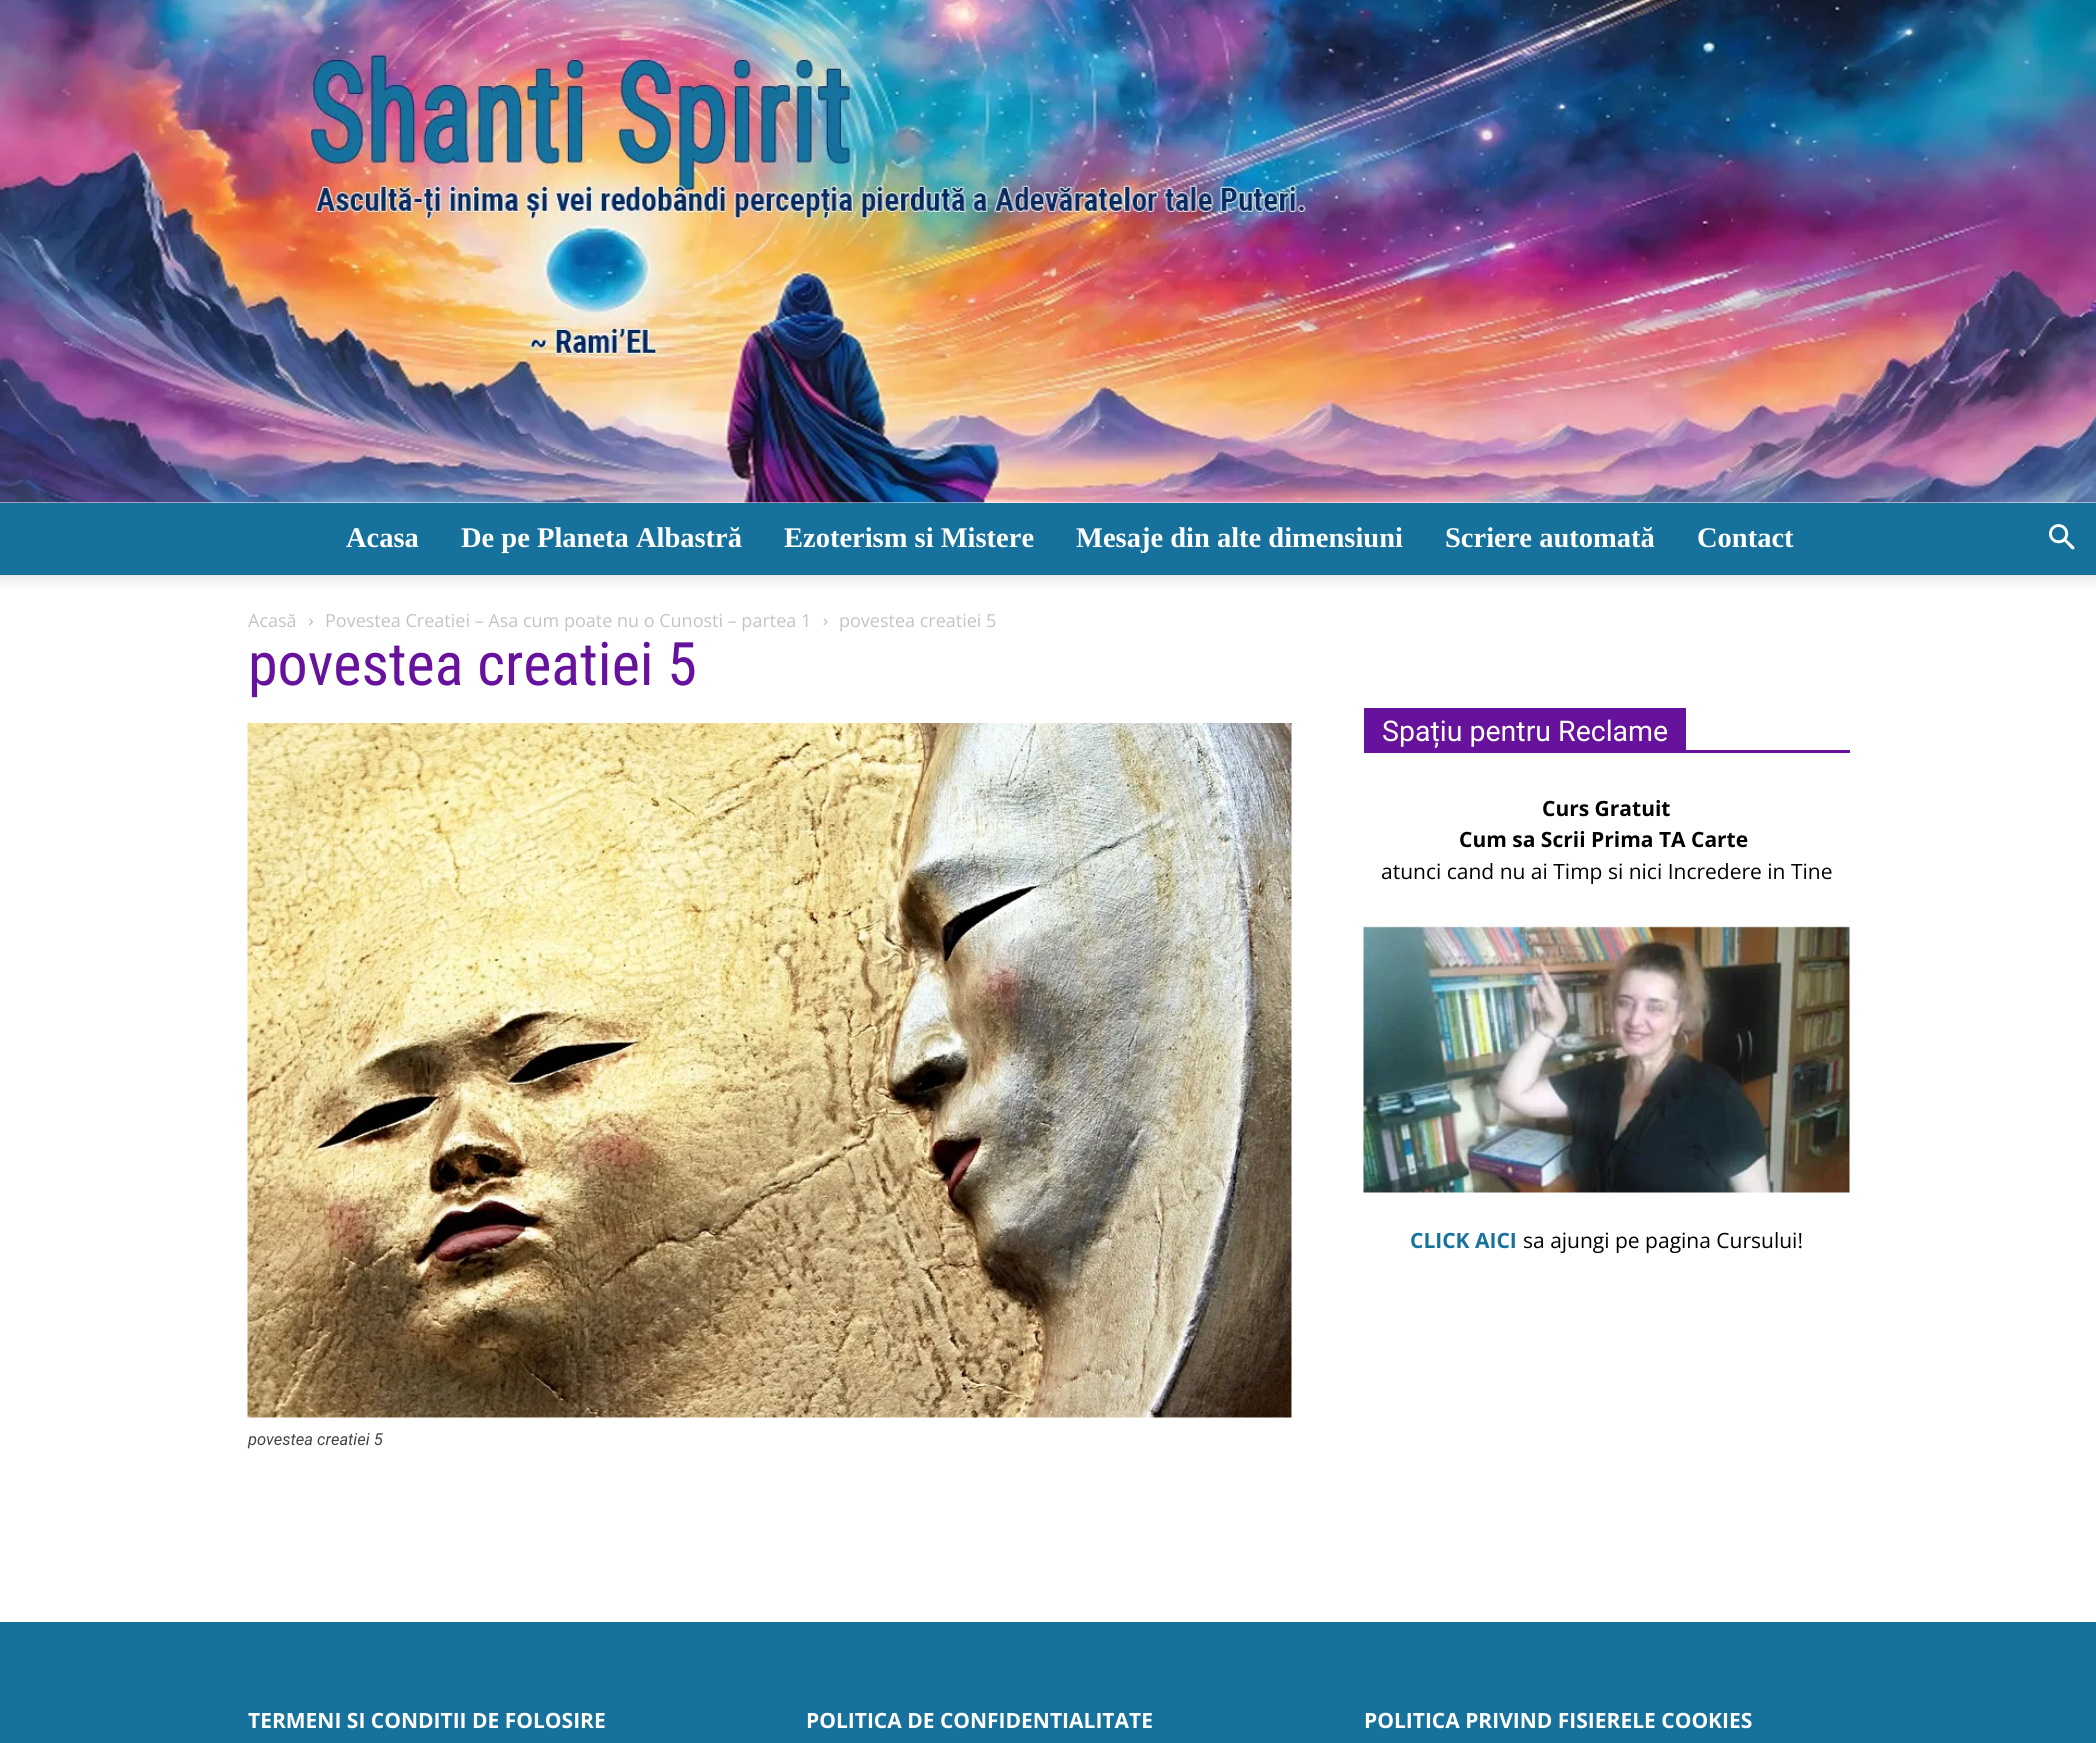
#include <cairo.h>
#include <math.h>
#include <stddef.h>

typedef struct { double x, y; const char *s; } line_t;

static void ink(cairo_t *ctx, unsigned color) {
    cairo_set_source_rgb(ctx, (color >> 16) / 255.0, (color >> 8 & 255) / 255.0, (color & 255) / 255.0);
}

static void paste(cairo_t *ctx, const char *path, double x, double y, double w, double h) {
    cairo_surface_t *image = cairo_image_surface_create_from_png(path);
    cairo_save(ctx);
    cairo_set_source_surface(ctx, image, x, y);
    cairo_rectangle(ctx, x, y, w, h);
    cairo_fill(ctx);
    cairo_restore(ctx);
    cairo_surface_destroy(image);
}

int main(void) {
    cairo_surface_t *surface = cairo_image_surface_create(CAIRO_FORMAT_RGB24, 2096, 1743);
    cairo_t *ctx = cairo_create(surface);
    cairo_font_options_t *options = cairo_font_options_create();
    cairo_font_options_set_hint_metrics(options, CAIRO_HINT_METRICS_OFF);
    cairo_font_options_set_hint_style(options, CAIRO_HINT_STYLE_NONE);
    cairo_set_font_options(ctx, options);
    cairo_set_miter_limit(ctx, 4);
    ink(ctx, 0xFFFFFF);
    cairo_paint(ctx);
    paste(ctx, "media/1.png", 0, 0, 2096, 503);
    ink(ctx, 0x16729C);
    cairo_rectangle(ctx, 0, 503, 2096, 72);
    cairo_fill(ctx);
    cairo_select_font_face(ctx, "Liberation Serif", CAIRO_FONT_SLANT_NORMAL, CAIRO_FONT_WEIGHT_BOLD);
    cairo_set_font_size(ctx, 28.5);
    ink(ctx, 0xFFFFFF);
    {
        static const line_t items[] = {
            {346, 547, "Acasa"},
            {461, 547, "De pe Planeta Albastră"},
            {784, 547, "Ezoterism si Mistere"},
            {1076, 547, "Mesaje din alte dimensiuni"},
            {1445, 547, "Scriere automată"},
            {1697, 547, "Contact"},
        };
        for (size_t i = 0; i < sizeof items / sizeof *items; i++) {
            cairo_move_to(ctx, items[i].x, items[i].y);
            cairo_show_text(ctx, items[i].s);
        }
    }
    paste(ctx, "media/2.png", 2049, 524, 26, 26);
    paste(ctx, "media/3.png", 0, 574, 2096, 13);
    cairo_select_font_face(ctx, "Open Sans", CAIRO_FONT_SLANT_NORMAL, CAIRO_FONT_WEIGHT_NORMAL);
    cairo_set_font_size(ctx, 18);
    ink(ctx, 0xC3C3C3);
    cairo_move_to(ctx, 248, 627);
    cairo_show_text(ctx, "Acasă");
    paste(ctx, "media/4.png", 309, 618, 4, 8);
    cairo_move_to(ctx, 325, 627);
    cairo_show_text(ctx, "Povestea Creatiei – Asa cum poate nu o Cunosti – partea 1");
    paste(ctx, "media/5.png", 823, 618, 5, 8);
    cairo_move_to(ctx, 839, 627);
    cairo_show_text(ctx, "povestea creatiei 5");
    cairo_select_font_face(ctx, "Roboto Condensed", CAIRO_FONT_SLANT_NORMAL, CAIRO_FONT_WEIGHT_NORMAL);
    cairo_set_font_size(ctx, 60);
    ink(ctx, 0x67129C);
    cairo_move_to(ctx, 248, 685);
    cairo_show_text(ctx, "povestea creatiei 5");
    paste(ctx, "media/6.png", 247, 723, 1045, 695);
    cairo_select_font_face(ctx, "Roboto", CAIRO_FONT_SLANT_ITALIC, CAIRO_FONT_WEIGHT_NORMAL);
    cairo_set_font_size(ctx, 16.5);
    ink(ctx, 0x444444);
    cairo_move_to(ctx, 248, 1445);
    cairo_show_text(ctx, "povestea creatiei 5");
    ink(ctx, 0x67129C);
    cairo_rectangle(ctx, 1364, 750, 486, 3);
    cairo_fill(ctx);
    cairo_rectangle(ctx, 1364, 708, 322, 42);
    cairo_fill(ctx);
    cairo_select_font_face(ctx, "Roboto", CAIRO_FONT_SLANT_NORMAL, CAIRO_FONT_WEIGHT_NORMAL);
    cairo_set_font_size(ctx, 28.5);
    ink(ctx, 0xFFFFF7);
    cairo_move_to(ctx, 1382, 741);
    cairo_show_text(ctx, "Spațiu pentru Reclame");
    cairo_select_font_face(ctx, "Open Sans", CAIRO_FONT_SLANT_NORMAL, CAIRO_FONT_WEIGHT_BOLD);
    cairo_set_font_size(ctx, 21);
    ink(ctx, 0x000000);
    cairo_move_to(ctx, 1542, 816);
    cairo_show_text(ctx, "Curs Gratuit");
    cairo_move_to(ctx, 1459, 847);
    cairo_show_text(ctx, "Cum sa Scrii Prima TA Carte");
    cairo_select_font_face(ctx, "Open Sans", CAIRO_FONT_SLANT_NORMAL, CAIRO_FONT_WEIGHT_NORMAL);
    cairo_move_to(ctx, 1381, 879);
    cairo_show_text(ctx, "atunci cand nu ai Timp si nici Incredere in Tine");
    paste(ctx, "media/7.png", 1363, 926, 487, 267);
    cairo_select_font_face(ctx, "Open Sans", CAIRO_FONT_SLANT_NORMAL, CAIRO_FONT_WEIGHT_BOLD);
    ink(ctx, 0x16729C);
    cairo_move_to(ctx, 1410, 1248);
    cairo_show_text(ctx, "CLICK AICI");
    cairo_select_font_face(ctx, "Open Sans", CAIRO_FONT_SLANT_NORMAL, CAIRO_FONT_WEIGHT_NORMAL);
    ink(ctx, 0x000000);
    cairo_move_to(ctx, 1523, 1248);
    cairo_show_text(ctx, "sa ajungi pe pagina Cursului!");
    ink(ctx, 0x16729C);
    cairo_rectangle(ctx, 0, 1622, 2096, 121);
    cairo_fill(ctx);
    cairo_select_font_face(ctx, "Open Sans", CAIRO_FONT_SLANT_NORMAL, CAIRO_FONT_WEIGHT_BOLD);
    ink(ctx, 0xFFFFFF);
    {
        static const line_t items[] = {
            {248, 1728, "TERMENI SI CONDITII DE FOLOSIRE"},
            {806, 1728, "POLITICA DE CONFIDENTIALITATE"},
            {1364, 1728, "POLITICA PRIVIND FISIERELE COOKIES"},
        };
        for (size_t i = 0; i < sizeof items / sizeof *items; i++) {
            cairo_move_to(ctx, items[i].x, items[i].y);
            cairo_show_text(ctx, items[i].s);
        }
    }
    cairo_surface_write_to_png(surface, "image.png");
    cairo_font_options_destroy(options);
    cairo_destroy(ctx);
    cairo_surface_destroy(surface);
    return 0;
}
